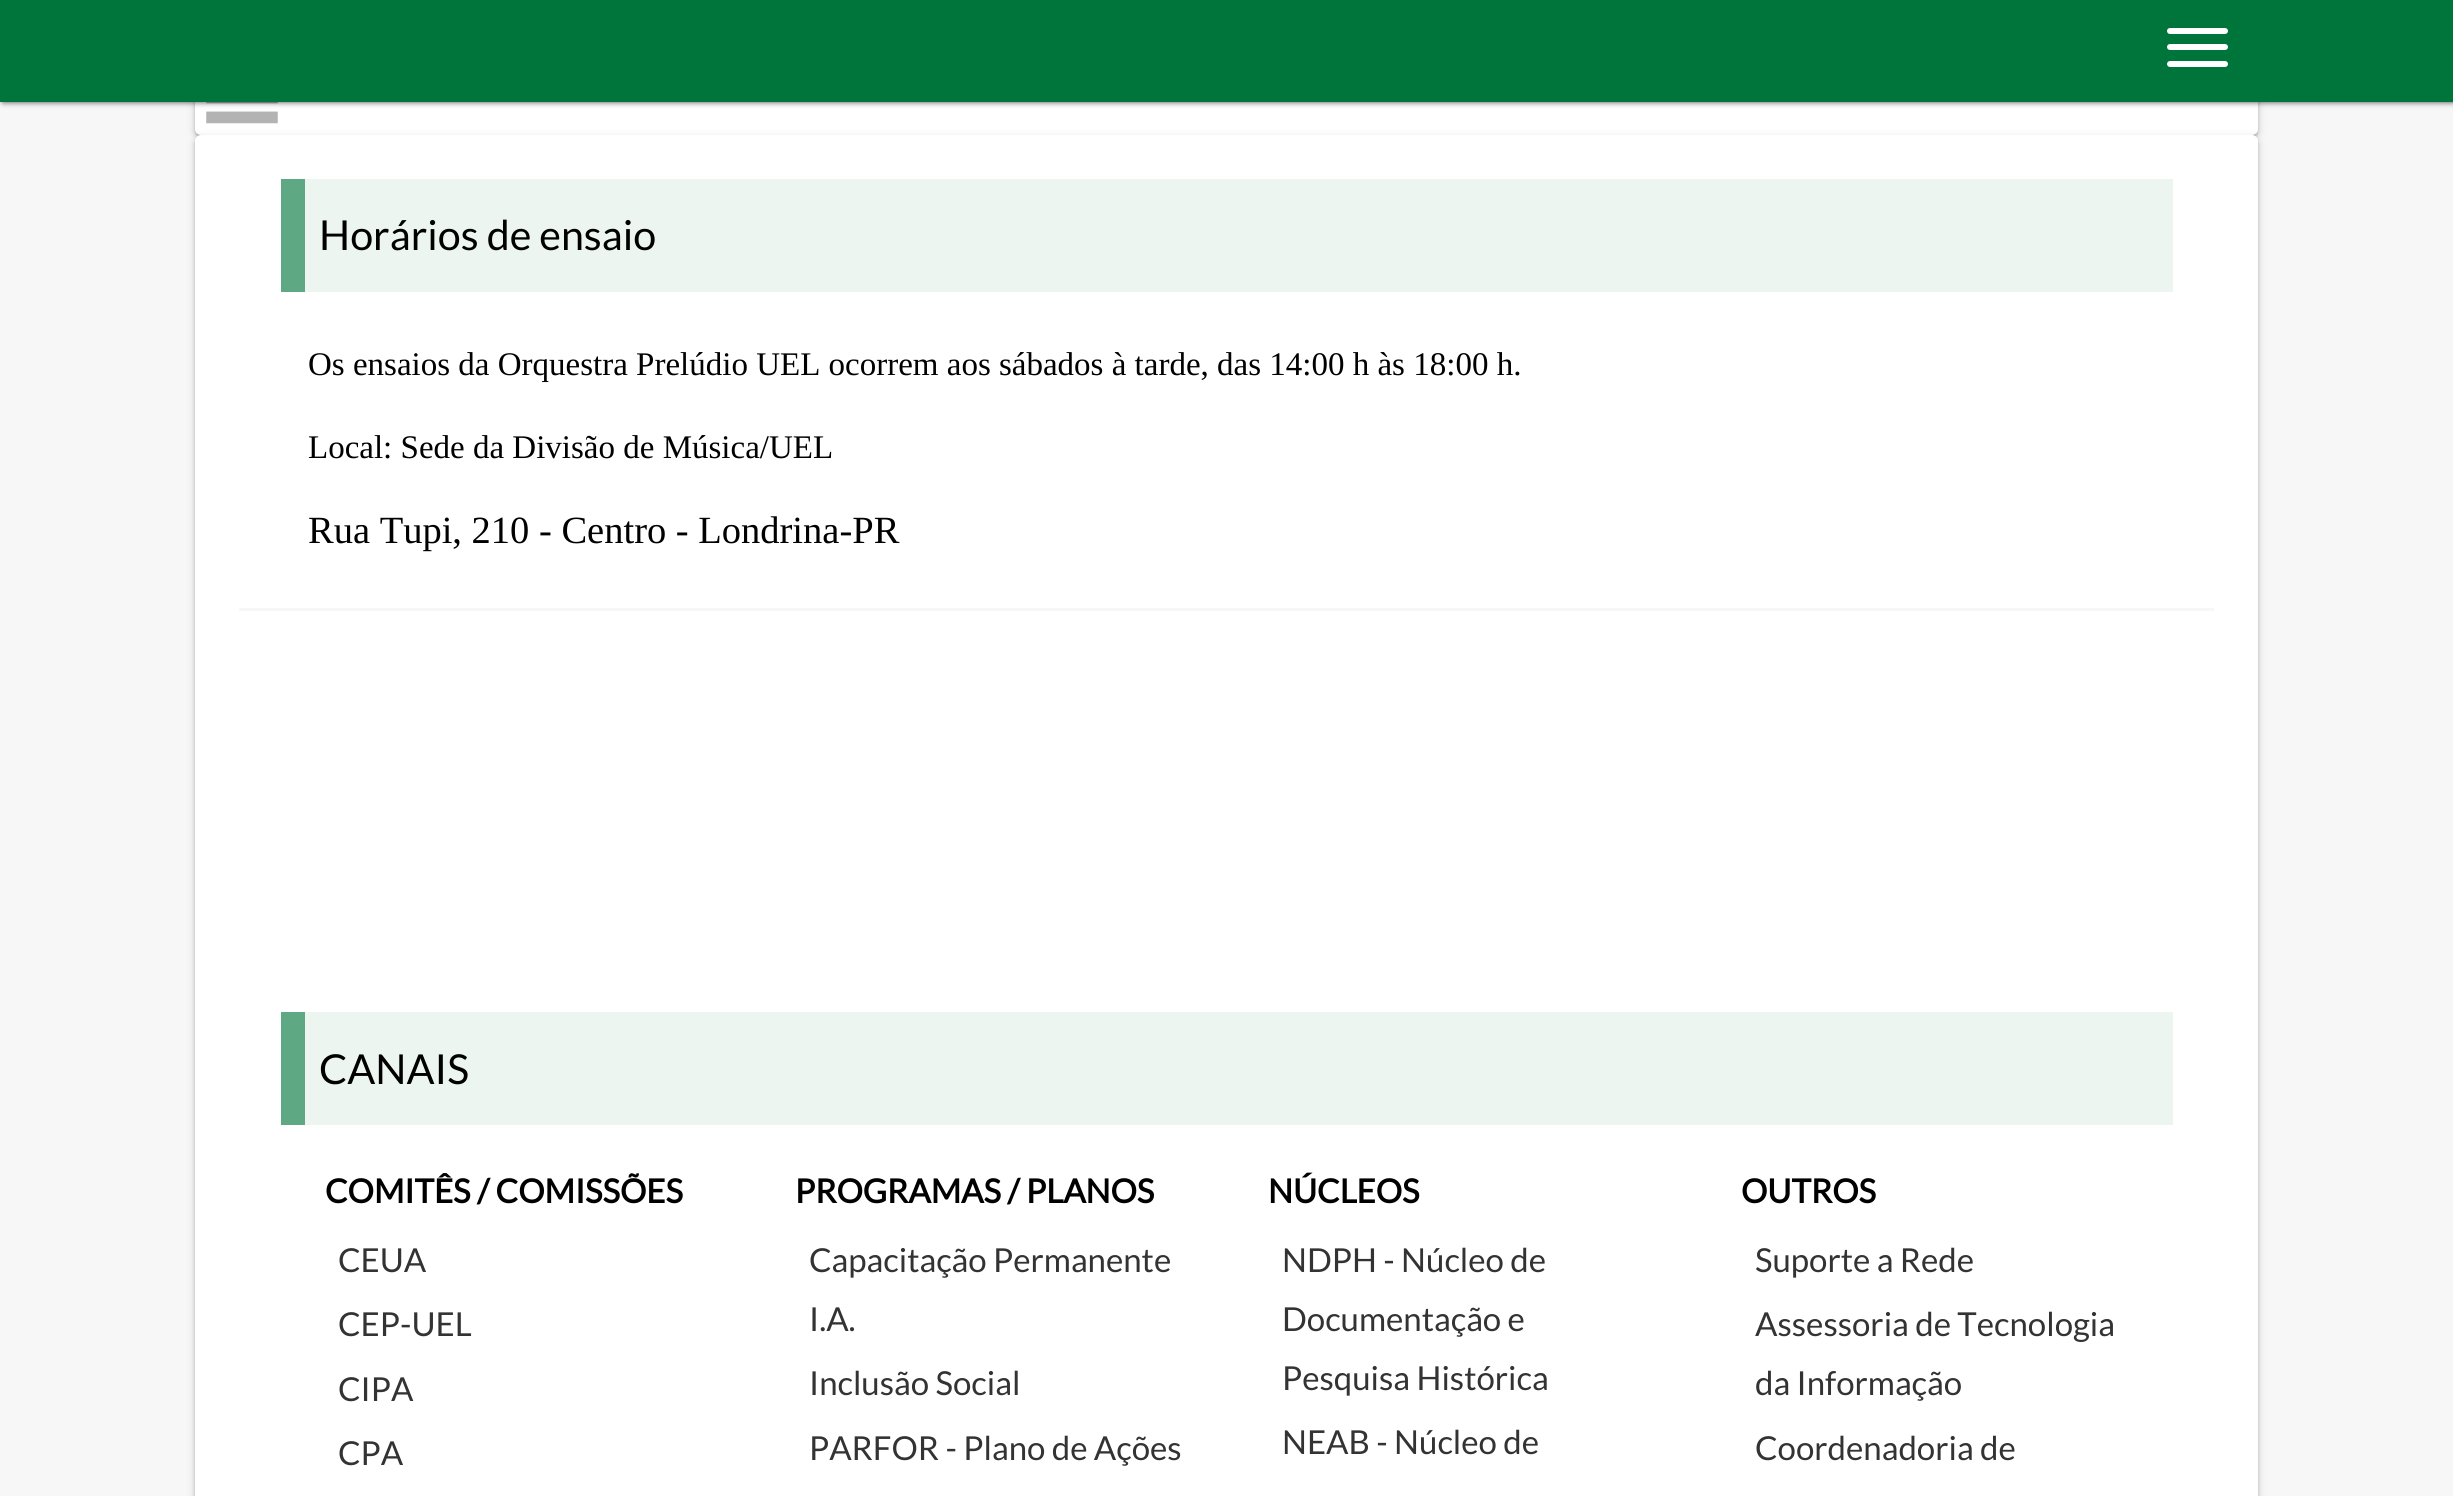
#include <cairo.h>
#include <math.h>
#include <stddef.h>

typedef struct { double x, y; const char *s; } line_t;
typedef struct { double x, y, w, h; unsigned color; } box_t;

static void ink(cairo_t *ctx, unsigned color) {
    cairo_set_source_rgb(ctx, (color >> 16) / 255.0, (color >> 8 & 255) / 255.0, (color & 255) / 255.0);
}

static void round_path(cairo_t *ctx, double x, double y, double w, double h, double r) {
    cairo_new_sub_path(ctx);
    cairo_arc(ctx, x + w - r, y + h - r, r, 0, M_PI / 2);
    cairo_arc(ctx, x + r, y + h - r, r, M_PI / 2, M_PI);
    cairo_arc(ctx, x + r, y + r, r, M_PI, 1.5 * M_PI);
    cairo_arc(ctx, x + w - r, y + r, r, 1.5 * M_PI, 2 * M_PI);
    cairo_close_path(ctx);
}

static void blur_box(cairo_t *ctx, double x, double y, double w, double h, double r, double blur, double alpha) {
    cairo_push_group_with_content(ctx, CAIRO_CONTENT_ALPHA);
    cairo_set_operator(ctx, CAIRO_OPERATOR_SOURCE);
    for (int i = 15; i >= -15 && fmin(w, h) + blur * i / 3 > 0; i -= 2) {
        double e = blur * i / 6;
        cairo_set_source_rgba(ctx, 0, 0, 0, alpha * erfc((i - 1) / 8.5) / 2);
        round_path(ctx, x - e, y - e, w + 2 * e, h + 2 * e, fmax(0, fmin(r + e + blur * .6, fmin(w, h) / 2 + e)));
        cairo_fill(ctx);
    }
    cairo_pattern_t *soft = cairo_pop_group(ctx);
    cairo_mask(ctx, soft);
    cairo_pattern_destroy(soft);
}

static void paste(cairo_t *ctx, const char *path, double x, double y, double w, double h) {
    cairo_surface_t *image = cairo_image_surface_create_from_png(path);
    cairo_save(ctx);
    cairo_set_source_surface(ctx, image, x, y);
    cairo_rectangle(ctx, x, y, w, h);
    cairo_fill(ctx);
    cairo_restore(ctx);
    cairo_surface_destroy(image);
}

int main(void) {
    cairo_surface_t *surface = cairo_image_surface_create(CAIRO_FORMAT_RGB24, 2453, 1496);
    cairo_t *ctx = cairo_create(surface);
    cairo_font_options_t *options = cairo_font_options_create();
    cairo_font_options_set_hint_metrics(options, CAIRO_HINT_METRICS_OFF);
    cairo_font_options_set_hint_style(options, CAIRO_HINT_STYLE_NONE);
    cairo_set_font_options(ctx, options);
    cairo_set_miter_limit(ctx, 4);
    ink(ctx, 0xF7F7F7);
    cairo_paint(ctx);
    ink(ctx, 0x000000);
    blur_box(ctx, 198, 61, 2057, 77, 3, 1.5, 0.12);
    blur_box(ctx, 195, 55, 2063, 83, 6, 1.5, 0.14);
    blur_box(ctx, 195, 55, 2063, 83, 6, 4, 0.2);
    ink(ctx, 0xFFFFFF);
    round_path(ctx, 195, 52, 2063, 83, 6);
    cairo_fill(ctx);
    paste(ctx, "media/1.png", 206, 102, 72, 22);
    ink(ctx, 0x000000);
    blur_box(ctx, 3, 0, 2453, 102, 0, 3, 0.75);
    ink(ctx, 0x00753B);
    cairo_rectangle(ctx, 0, 0, 2453, 102);
    cairo_fill(ctx);
    ink(ctx, 0xFFFFFF);
    round_path(ctx, 2167, 28, 61, 6, 3);
    cairo_fill(ctx);
    round_path(ctx, 2167, 44, 61, 6, 3);
    cairo_fill(ctx);
    round_path(ctx, 2167, 61, 61, 6, 3);
    cairo_fill(ctx);
    ink(ctx, 0x000000);
    blur_box(ctx, 195, 138, 2063, 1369, 6, 1.5, 0.14);
    blur_box(ctx, 195, 138, 2063, 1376, 6, 4, 0.2);
    ink(ctx, 0xFFFFFF);
    round_path(ctx, 195, 135, 2063, 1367, 6);
    cairo_fill(ctx);
    ink(ctx, 0xEDF5F1);
    cairo_rectangle(ctx, 305, 179, 1868, 113);
    cairo_fill(ctx);
    ink(ctx, 0x5FA884);
    cairo_rectangle(ctx, 281, 179, 24, 113);
    cairo_fill(ctx);
    cairo_select_font_face(ctx, "Lato", CAIRO_FONT_SLANT_NORMAL, CAIRO_FONT_WEIGHT_NORMAL);
    cairo_set_font_size(ctx, 41.25);
    ink(ctx, 0x000000);
    cairo_move_to(ctx, 319, 250);
    cairo_show_text(ctx, "Horários de ensaio");
    cairo_select_font_face(ctx, "Liberation Serif", CAIRO_FONT_SLANT_NORMAL, CAIRO_FONT_WEIGHT_NORMAL);
    cairo_set_font_size(ctx, 33);
    cairo_move_to(ctx, 308, 375);
    cairo_show_text(ctx, "Os ensaios da Orquestra Prelúdio UEL ocorrem aos sábados à tarde, das 14:00 h às 18:00 h.");
    cairo_move_to(ctx, 308, 458);
    cairo_show_text(ctx, "Local: Sede da Divisão de Música/UEL");
    cairo_set_font_size(ctx, 38.5);
    cairo_move_to(ctx, 308, 543);
    cairo_show_text(ctx, "Rua Tupi, 210 - Centro - Londrina-PR");
    {
        static const box_t items[] = {
            {239, 608, 1975, 3, 0xF7F7F7},
            {305, 1012, 1868, 113, 0xEDF5F1},
            {281, 1012, 24, 113, 0x5FA884},
        };
        for (size_t i = 0; i < sizeof items / sizeof *items; i++) {
            ink(ctx, items[i].color);
            cairo_rectangle(ctx, items[i].x, items[i].y, items[i].w, items[i].h);
            cairo_fill(ctx);
        }
    }
    cairo_select_font_face(ctx, "Lato", CAIRO_FONT_SLANT_NORMAL, CAIRO_FONT_WEIGHT_NORMAL);
    cairo_set_font_size(ctx, 41.25);
    ink(ctx, 0x000000);
    cairo_move_to(ctx, 319, 1084);
    cairo_show_text(ctx, "CANAIS");
    cairo_select_font_face(ctx, "Lato", CAIRO_FONT_SLANT_NORMAL, CAIRO_FONT_WEIGHT_BOLD);
    cairo_set_font_size(ctx, 33);
    cairo_move_to(ctx, 325, 1203);
    cairo_show_text(ctx, "COMITÊS / COMISSÕES");
    cairo_select_font_face(ctx, "Lato", CAIRO_FONT_SLANT_NORMAL, CAIRO_FONT_WEIGHT_NORMAL);
    ink(ctx, 0x333333);
    {
        static const line_t items[] = {
            {338, 1272, "CEUA"},
            {338, 1336, "CEP-UEL"},
            {338, 1401, "CIPA"},
            {338, 1465, "CPA"},
        };
        for (size_t i = 0; i < sizeof items / sizeof *items; i++) {
            cairo_move_to(ctx, items[i].x, items[i].y);
            cairo_show_text(ctx, items[i].s);
        }
    }
    cairo_select_font_face(ctx, "Lato", CAIRO_FONT_SLANT_NORMAL, CAIRO_FONT_WEIGHT_BOLD);
    ink(ctx, 0x000000);
    cairo_move_to(ctx, 795, 1203);
    cairo_show_text(ctx, "PROGRAMAS / PLANOS");
    cairo_select_font_face(ctx, "Lato", CAIRO_FONT_SLANT_NORMAL, CAIRO_FONT_WEIGHT_NORMAL);
    ink(ctx, 0x333333);
    {
        static const line_t items[] = {
            {809, 1272, "Capacitação Permanente"},
            {809, 1331, "I.A."},
            {809, 1395, "Inclusão Social"},
            {809, 1460, "PARFOR - Plano de Ações"},
        };
        for (size_t i = 0; i < sizeof items / sizeof *items; i++) {
            cairo_move_to(ctx, items[i].x, items[i].y);
            cairo_show_text(ctx, items[i].s);
        }
    }
    cairo_select_font_face(ctx, "Lato", CAIRO_FONT_SLANT_NORMAL, CAIRO_FONT_WEIGHT_BOLD);
    ink(ctx, 0x000000);
    cairo_move_to(ctx, 1268, 1203);
    cairo_show_text(ctx, "NÚCLEOS");
    cairo_select_font_face(ctx, "Lato", CAIRO_FONT_SLANT_NORMAL, CAIRO_FONT_WEIGHT_NORMAL);
    ink(ctx, 0x333333);
    {
        static const line_t items[] = {
            {1282, 1272, "NDPH - Núcleo de"},
            {1282, 1331, "Documentação e"},
            {1282, 1390, "Pesquisa Histórica"},
            {1282, 1454, "NEAB - Núcleo de"},
        };
        for (size_t i = 0; i < sizeof items / sizeof *items; i++) {
            cairo_move_to(ctx, items[i].x, items[i].y);
            cairo_show_text(ctx, items[i].s);
        }
    }
    cairo_select_font_face(ctx, "Lato", CAIRO_FONT_SLANT_NORMAL, CAIRO_FONT_WEIGHT_BOLD);
    ink(ctx, 0x000000);
    cairo_move_to(ctx, 1741, 1203);
    cairo_show_text(ctx, "OUTROS");
    cairo_select_font_face(ctx, "Lato", CAIRO_FONT_SLANT_NORMAL, CAIRO_FONT_WEIGHT_NORMAL);
    ink(ctx, 0x333333);
    {
        static const line_t items[] = {
            {1755, 1272, "Suporte a Rede"},
            {1755, 1336, "Assessoria de Tecnologia"},
            {1755, 1395, "da Informação"},
            {1755, 1460, "Coordenadoria de"},
        };
        for (size_t i = 0; i < sizeof items / sizeof *items; i++) {
            cairo_move_to(ctx, items[i].x, items[i].y);
            cairo_show_text(ctx, items[i].s);
        }
    }
    cairo_surface_write_to_png(surface, "image.png");
    cairo_font_options_destroy(options);
    cairo_destroy(ctx);
    cairo_surface_destroy(surface);
    return 0;
}
